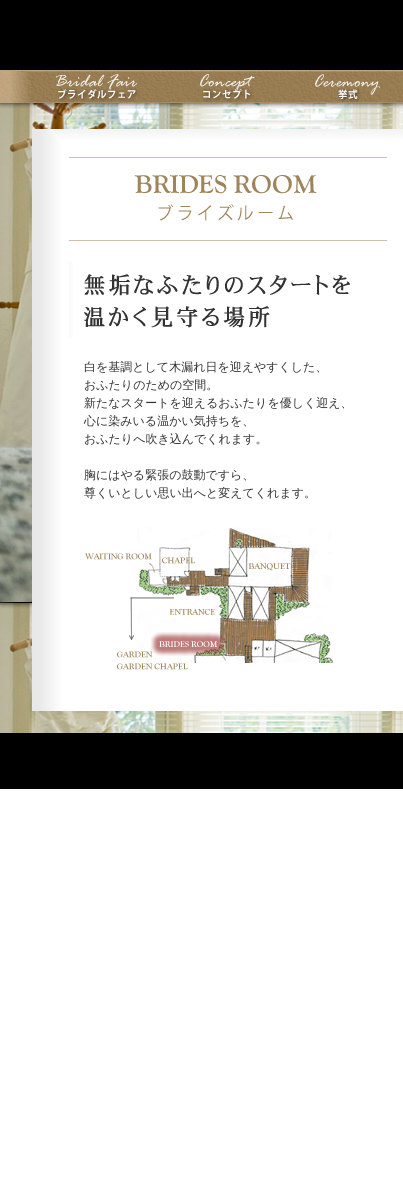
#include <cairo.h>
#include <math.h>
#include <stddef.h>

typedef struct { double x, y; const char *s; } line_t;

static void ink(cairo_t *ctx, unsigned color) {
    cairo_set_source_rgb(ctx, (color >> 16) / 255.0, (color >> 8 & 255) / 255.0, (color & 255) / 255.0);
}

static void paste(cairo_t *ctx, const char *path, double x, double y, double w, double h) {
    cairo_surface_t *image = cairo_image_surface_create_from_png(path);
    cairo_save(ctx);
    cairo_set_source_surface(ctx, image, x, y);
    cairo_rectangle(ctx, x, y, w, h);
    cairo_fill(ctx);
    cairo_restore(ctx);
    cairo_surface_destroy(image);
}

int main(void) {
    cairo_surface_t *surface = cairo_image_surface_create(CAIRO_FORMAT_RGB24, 403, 1203);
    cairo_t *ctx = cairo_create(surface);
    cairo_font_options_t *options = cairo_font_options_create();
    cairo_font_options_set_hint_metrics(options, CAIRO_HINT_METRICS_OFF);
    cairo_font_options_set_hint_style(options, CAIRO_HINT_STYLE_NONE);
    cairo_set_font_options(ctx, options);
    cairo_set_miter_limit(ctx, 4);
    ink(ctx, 0xFFFFFF);
    cairo_paint(ctx);
    ink(ctx, 0x000000);
    cairo_rectangle(ctx, 0, 0, 403, 70);
    cairo_fill(ctx);
    paste(ctx, "media/1.png", 0, 70, 403, 33);
    paste(ctx, "media/2.png", 55, 74, 84, 28);
    paste(ctx, "media/3.png", 200, 74, 55, 29);
    paste(ctx, "media/4.png", 315, 74, 65, 28);
    paste(ctx, "media/5.png", 0, 103, 403, 630);
    paste(ctx, "media/6.png", 32, 129, 371, 582);
    ink(ctx, 0xCEC1AC);
    cairo_rectangle(ctx, 69, 157, 318, 1);
    cairo_fill(ctx);
    cairo_rectangle(ctx, 69, 240, 318, 1);
    cairo_fill(ctx);
    paste(ctx, "media/7.png", 134, 175, 183, 46);
    paste(ctx, "media/8.png", 69, 261, 281, 77);
    cairo_select_font_face(ctx, "WenQuanYi Zen Hei Medium", CAIRO_FONT_SLANT_NORMAL, CAIRO_FONT_WEIGHT_NORMAL);
    cairo_set_font_size(ctx, 12);
    ink(ctx, 0x333333);
    {
        static const line_t items[] = {
            {84, 371, "白を基調として木漏れ日を迎えやすくした、"},
            {84, 389, "おふたりのための空間。"},
            {84, 407, "新たなスタートを迎えるおふたりを優しく迎え、"},
            {84, 425, "心に染みいる温かい気持ちを、"},
            {84, 443, "おふたりへ吹き込んでくれます。"},
            {84, 479, "胸にはやる緊張の鼓動ですら、"},
            {84, 497, "尊くいとしい思い出へと変えてくれます。"},
        };
        for (size_t i = 0; i < sizeof items / sizeof *items; i++) {
            cairo_move_to(ctx, items[i].x, items[i].y);
            cairo_show_text(ctx, items[i].s);
        }
    }
    paste(ctx, "media/9.png", 85, 526, 248, 144);
    ink(ctx, 0x000000);
    cairo_rectangle(ctx, 0, 733, 403, 56);
    cairo_fill(ctx);
    cairo_surface_write_to_png(surface, "image.png");
    cairo_font_options_destroy(options);
    cairo_destroy(ctx);
    cairo_surface_destroy(surface);
    return 0;
}
